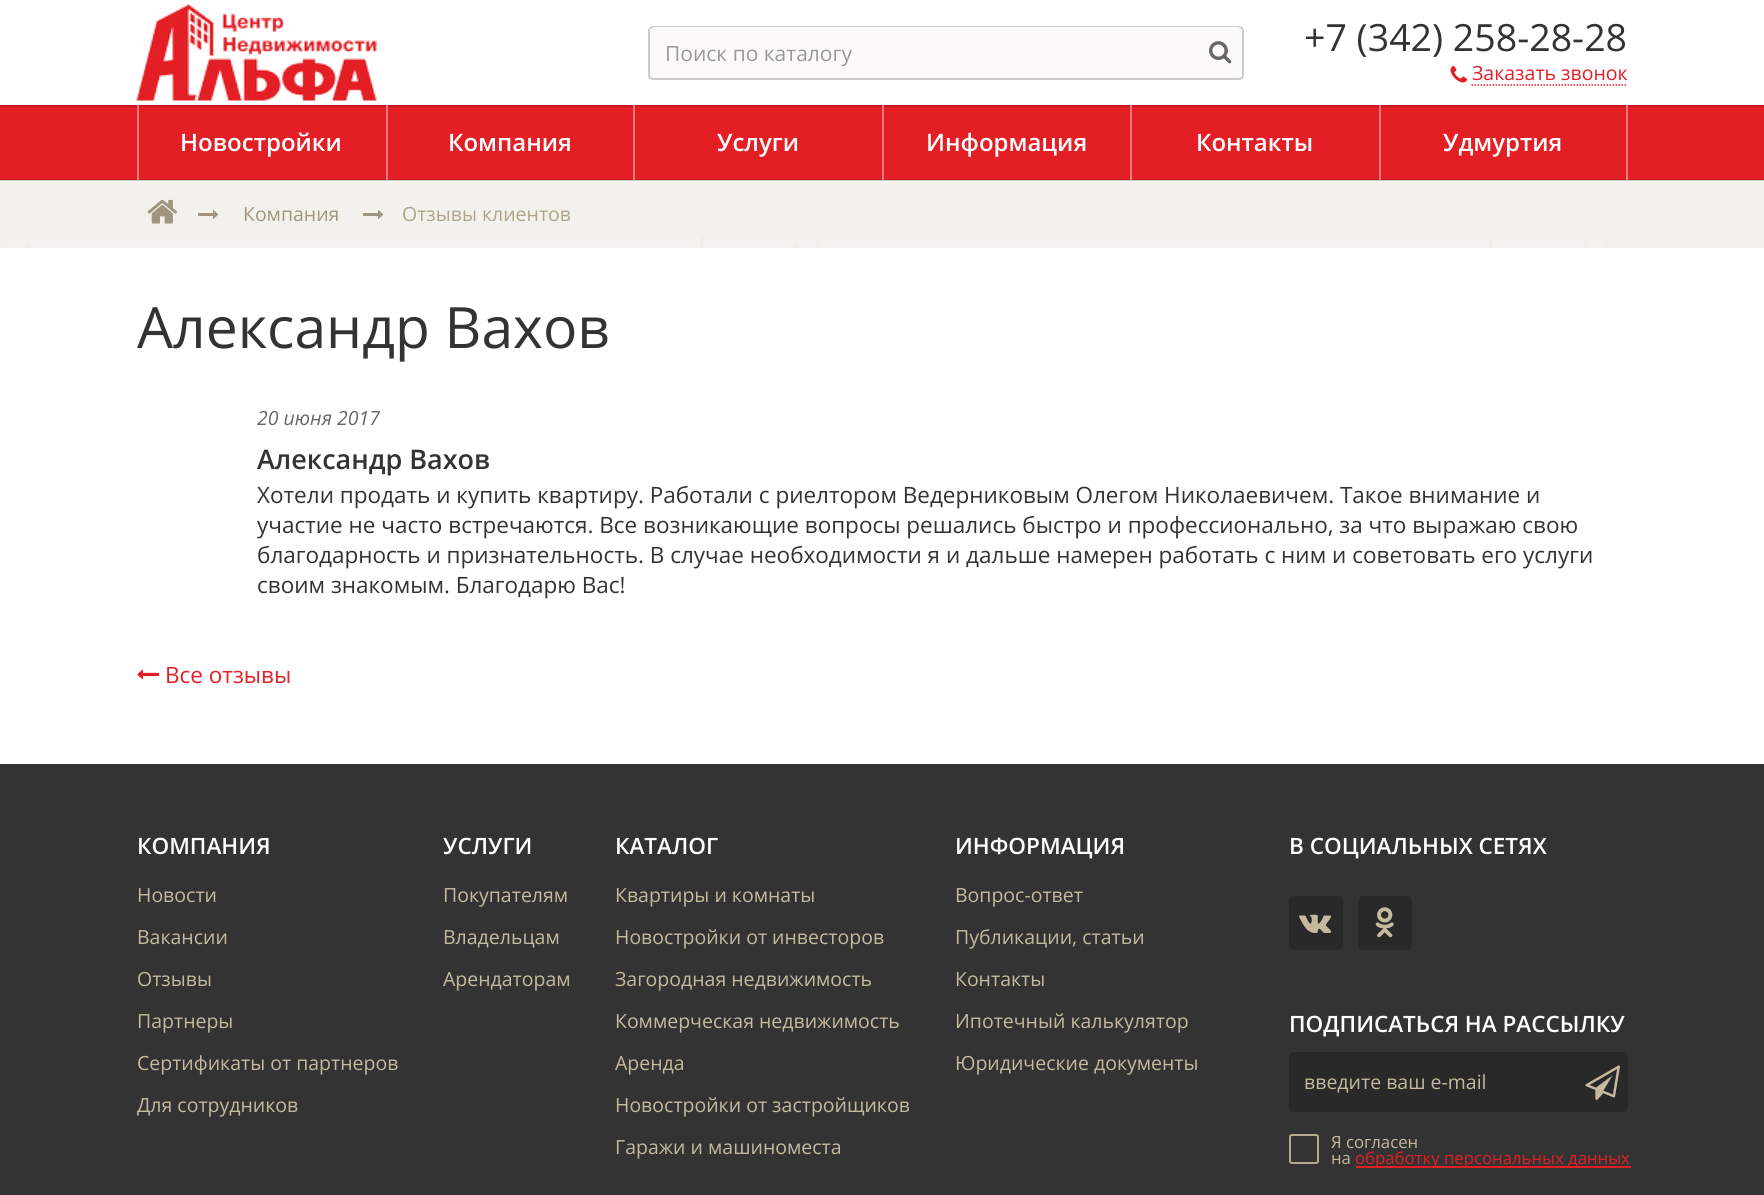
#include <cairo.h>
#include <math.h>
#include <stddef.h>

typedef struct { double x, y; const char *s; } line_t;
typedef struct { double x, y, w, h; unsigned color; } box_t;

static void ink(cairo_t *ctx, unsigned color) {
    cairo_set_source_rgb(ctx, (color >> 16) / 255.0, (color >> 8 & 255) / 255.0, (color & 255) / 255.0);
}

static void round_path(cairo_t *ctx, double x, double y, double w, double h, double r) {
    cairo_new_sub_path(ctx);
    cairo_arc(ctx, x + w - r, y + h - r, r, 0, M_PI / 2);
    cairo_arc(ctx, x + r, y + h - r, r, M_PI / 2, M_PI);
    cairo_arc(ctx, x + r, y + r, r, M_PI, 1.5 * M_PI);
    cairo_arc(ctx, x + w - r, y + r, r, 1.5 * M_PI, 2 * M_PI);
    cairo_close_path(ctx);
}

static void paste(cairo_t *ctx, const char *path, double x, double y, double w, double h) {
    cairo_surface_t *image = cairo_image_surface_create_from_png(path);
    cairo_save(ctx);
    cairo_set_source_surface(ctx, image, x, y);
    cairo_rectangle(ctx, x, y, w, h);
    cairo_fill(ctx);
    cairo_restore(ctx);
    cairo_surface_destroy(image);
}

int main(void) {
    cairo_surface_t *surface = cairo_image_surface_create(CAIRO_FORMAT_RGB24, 1764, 1195);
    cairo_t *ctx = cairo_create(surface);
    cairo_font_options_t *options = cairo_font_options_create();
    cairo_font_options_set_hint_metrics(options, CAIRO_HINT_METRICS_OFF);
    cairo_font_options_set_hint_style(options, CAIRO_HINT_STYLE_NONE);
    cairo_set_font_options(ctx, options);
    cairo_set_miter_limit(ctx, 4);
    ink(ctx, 0xFFFFFF);
    cairo_paint(ctx);
    paste(ctx, "media/1.png", 136, 4, 241, 97);
    ink(ctx, 0xFBFAF8);
    round_path(ctx, 649, 27, 594, 52, 4);
    cairo_fill_preserve(ctx);
    ink(ctx, 0xCCCCCC);
    cairo_stroke(ctx);
    ink(ctx, 0xFBFAF8);
    round_path(ctx, 650, 27, 592, 51, 5);
    cairo_fill(ctx);
    cairo_select_font_face(ctx, "Open Sans", CAIRO_FONT_SLANT_NORMAL, CAIRO_FONT_WEIGHT_NORMAL);
    cairo_set_font_size(ctx, 21);
    ink(ctx, 0x999999);
    cairo_move_to(ctx, 665, 61);
    cairo_show_text(ctx, "Поиск по каталогу");
    ink(ctx, 0xFBFAF8);
    round_path(ctx, 1191, 27, 51, 51, 5);
    cairo_fill(ctx);
    paste(ctx, "media/2.png", 1209, 41, 23, 23);
    cairo_set_font_size(ctx, 37.5);
    ink(ctx, 0x333333);
    cairo_move_to(ctx, 1304, 51);
    cairo_show_text(ctx, "+7 (342) 258-28-28");
    paste(ctx, "media/3.png", 1450, 66, 17, 17);
    cairo_new_path(ctx);
    cairo_move_to(ctx, 1471.5, 85);
    cairo_line_to(ctx, 1627.5, 85);
    ink(ctx, 0xE31E25);
    cairo_set_line_width(ctx, 1.5);
    cairo_set_dash(ctx, (double[]){1.5, 1.5}, 2, 0);
    cairo_stroke(ctx);
    cairo_set_font_size(ctx, 19.5);
    cairo_move_to(ctx, 1472, 80);
    cairo_show_text(ctx, "Заказать звонок");
    cairo_rectangle(ctx, 0, 107, 1764, 72);
    cairo_fill(ctx);
    cairo_select_font_face(ctx, "Open Sans SemiBold", CAIRO_FONT_SLANT_NORMAL, CAIRO_FONT_WEIGHT_NORMAL);
    cairo_set_font_size(ctx, 24);
    ink(ctx, 0xFFFFFF);
    {
        static const line_t items[] = {
            {180, 151, "Новостройки"},
            {448, 151, "Компания"},
            {717, 151, "Услуги"},
            {926, 151, "Информация"},
            {1196, 151, "Контакты"},
            {1443, 151, "Удмуртия"},
        };
        for (size_t i = 0; i < sizeof items / sizeof *items; i++) {
            cairo_move_to(ctx, items[i].x, items[i].y);
            cairo_show_text(ctx, items[i].s);
        }
    }
    {
        static const box_t items[] = {
            {1379, 105, 2, 75, 0xEE787C},
            {1130, 105, 2, 75, 0xEE787C},
            {882, 105, 2, 75, 0xEE787C},
            {633, 105, 2, 75, 0xEE787C},
            {386, 105, 2, 75, 0xEE787C},
            {137, 105, 2, 75, 0xEE787C},
            {1626, 105, 2, 75, 0xEE787C},
            {0, 179, 1764, 1, 0xC11A1F},
            {1379, 179, 2, 1, 0xDA7679},
            {1130, 179, 2, 1, 0xDA7679},
            {882, 179, 2, 1, 0xDA7679},
            {633, 179, 2, 1, 0xDA7679},
            {386, 179, 2, 1, 0xDA7679},
            {137, 179, 2, 1, 0xDA7679},
            {1626, 179, 2, 1, 0xDA7679},
            {0, 105, 1764, 2, 0xC11A1F},
            {1379, 105, 2, 2, 0xDA7679},
            {1130, 105, 2, 2, 0xDA7679},
            {882, 105, 2, 2, 0xDA7679},
            {633, 105, 2, 2, 0xDA7679},
            {386, 105, 2, 2, 0xDA7679},
            {137, 105, 2, 2, 0xDA7679},
            {1626, 105, 2, 2, 0xDA7679},
            {0, 181, 1764, 67, 0xF3F1EC},
            {0, 180, 1764, 1, 0xCFCDC9},
        };
        for (size_t i = 0; i < sizeof items / sizeof *items; i++) {
            ink(ctx, items[i].color);
            cairo_rectangle(ctx, items[i].x, items[i].y, items[i].w, items[i].h);
            cairo_fill(ctx);
        }
    }
    paste(ctx, "media/4.png", 147, 199, 31, 25);
    paste(ctx, "media/5.png", 198, 210, 21, 9);
    cairo_select_font_face(ctx, "Open Sans", CAIRO_FONT_SLANT_NORMAL, CAIRO_FONT_WEIGHT_NORMAL);
    cairo_set_font_size(ctx, 19.5);
    ink(ctx, 0xA0967F);
    cairo_move_to(ctx, 243, 221);
    cairo_show_text(ctx, "Компания");
    paste(ctx, "media/5.png", 363, 210, 21, 9);
    ink(ctx, 0xB0A48A);
    cairo_move_to(ctx, 402, 221);
    cairo_show_text(ctx, "Отзывы клиентов");
    paste(ctx, "media/6.png", 5, 237, 1602, 10);
    cairo_set_font_size(ctx, 57);
    ink(ctx, 0x333333);
    cairo_move_to(ctx, 137, 348);
    cairo_show_text(ctx, "Александр Вахов");
    cairo_select_font_face(ctx, "Open Sans", CAIRO_FONT_SLANT_ITALIC, CAIRO_FONT_WEIGHT_NORMAL);
    cairo_set_font_size(ctx, 19.5);
    ink(ctx, 0x666666);
    cairo_move_to(ctx, 257, 425);
    cairo_show_text(ctx, "20 июня 2017");
    cairo_select_font_face(ctx, "Open Sans SemiBold", CAIRO_FONT_SLANT_NORMAL, CAIRO_FONT_WEIGHT_NORMAL);
    cairo_set_font_size(ctx, 27);
    ink(ctx, 0x333333);
    cairo_move_to(ctx, 257, 469);
    cairo_show_text(ctx, "Александр Вахов");
    cairo_select_font_face(ctx, "Open Sans", CAIRO_FONT_SLANT_NORMAL, CAIRO_FONT_WEIGHT_NORMAL);
    cairo_set_font_size(ctx, 22.5);
    {
        static const line_t items[] = {
            {257, 503, "Хотели продать и купить квартиру. Работали с риелтором Ведерниковым Олегом Николаевичем. Такое внимание и"},
            {257, 533, "участие не часто встречаются. Все возникающие вопросы решались быстро и профессионально, за что выражаю свою"},
            {257, 563, "благодарность и признательность. В случае необходимости я и дальше намерен работать с ним и советовать его услуги"},
            {257, 593, "своим знакомым. Благодарю Вас!"},
        };
        for (size_t i = 0; i < sizeof items / sizeof *items; i++) {
            cairo_move_to(ctx, items[i].x, items[i].y);
            cairo_show_text(ctx, items[i].s);
        }
    }
    paste(ctx, "media/7.png", 137, 669, 22, 11);
    ink(ctx, 0xE31E25);
    cairo_move_to(ctx, 165, 683);
    cairo_show_text(ctx, "Все отзывы");
    ink(ctx, 0x333333);
    cairo_rectangle(ctx, 0, 764, 1764, 431);
    cairo_fill(ctx);
    cairo_select_font_face(ctx, "Open Sans SemiBold", CAIRO_FONT_SLANT_NORMAL, CAIRO_FONT_WEIGHT_NORMAL);
    ink(ctx, 0xFFFFFF);
    cairo_move_to(ctx, 137, 854);
    cairo_show_text(ctx, "КОМПАНИЯ");
    cairo_select_font_face(ctx, "Open Sans", CAIRO_FONT_SLANT_NORMAL, CAIRO_FONT_WEIGHT_NORMAL);
    cairo_set_font_size(ctx, 19.5);
    ink(ctx, 0xC5B99F);
    {
        static const line_t items[] = {
            {137, 902, "Новости"},
            {137, 944, "Вакансии"},
            {137, 986, "Отзывы"},
            {137, 1028, "Партнеры"},
            {137, 1070, "Сертификаты от партнеров"},
            {137, 1112, "Для сотрудников"},
        };
        for (size_t i = 0; i < sizeof items / sizeof *items; i++) {
            cairo_move_to(ctx, items[i].x, items[i].y);
            cairo_show_text(ctx, items[i].s);
        }
    }
    cairo_select_font_face(ctx, "Open Sans SemiBold", CAIRO_FONT_SLANT_NORMAL, CAIRO_FONT_WEIGHT_NORMAL);
    cairo_set_font_size(ctx, 22.5);
    ink(ctx, 0xFFFFFF);
    cairo_move_to(ctx, 443, 854);
    cairo_show_text(ctx, "УСЛУГИ");
    cairo_select_font_face(ctx, "Open Sans", CAIRO_FONT_SLANT_NORMAL, CAIRO_FONT_WEIGHT_NORMAL);
    cairo_set_font_size(ctx, 19.5);
    ink(ctx, 0xC5B99F);
    {
        static const line_t items[] = {
            {443, 902, "Покупателям"},
            {443, 944, "Владельцам"},
            {443, 986, "Арендаторам"},
        };
        for (size_t i = 0; i < sizeof items / sizeof *items; i++) {
            cairo_move_to(ctx, items[i].x, items[i].y);
            cairo_show_text(ctx, items[i].s);
        }
    }
    cairo_select_font_face(ctx, "Open Sans SemiBold", CAIRO_FONT_SLANT_NORMAL, CAIRO_FONT_WEIGHT_NORMAL);
    cairo_set_font_size(ctx, 22.5);
    ink(ctx, 0xFFFFFF);
    cairo_move_to(ctx, 615, 854);
    cairo_show_text(ctx, "КАТАЛОГ");
    cairo_select_font_face(ctx, "Open Sans", CAIRO_FONT_SLANT_NORMAL, CAIRO_FONT_WEIGHT_NORMAL);
    cairo_set_font_size(ctx, 19.5);
    ink(ctx, 0xC5B99F);
    {
        static const line_t items[] = {
            {615, 902, "Квартиры и комнаты"},
            {615, 944, "Новостройки от инвесторов"},
            {615, 986, "Загородная недвижимость"},
            {615, 1028, "Коммерческая недвижимость"},
            {615, 1070, "Аренда"},
            {615, 1112, "Новостройки от застройщиков"},
            {615, 1154, "Гаражи и машиноместа"},
        };
        for (size_t i = 0; i < sizeof items / sizeof *items; i++) {
            cairo_move_to(ctx, items[i].x, items[i].y);
            cairo_show_text(ctx, items[i].s);
        }
    }
    cairo_select_font_face(ctx, "Open Sans SemiBold", CAIRO_FONT_SLANT_NORMAL, CAIRO_FONT_WEIGHT_NORMAL);
    cairo_set_font_size(ctx, 22.5);
    ink(ctx, 0xFFFFFF);
    cairo_move_to(ctx, 955, 854);
    cairo_show_text(ctx, "ИНФОРМАЦИЯ");
    cairo_select_font_face(ctx, "Open Sans", CAIRO_FONT_SLANT_NORMAL, CAIRO_FONT_WEIGHT_NORMAL);
    cairo_set_font_size(ctx, 19.5);
    ink(ctx, 0xC5B99F);
    {
        static const line_t items[] = {
            {955, 902, "Вопрос-ответ"},
            {955, 944, "Публикации, статьи"},
            {955, 986, "Контакты"},
            {955, 1028, "Ипотечный калькулятор"},
            {955, 1070, "Юридические документы"},
        };
        for (size_t i = 0; i < sizeof items / sizeof *items; i++) {
            cairo_move_to(ctx, items[i].x, items[i].y);
            cairo_show_text(ctx, items[i].s);
        }
    }
    cairo_select_font_face(ctx, "Open Sans SemiBold", CAIRO_FONT_SLANT_NORMAL, CAIRO_FONT_WEIGHT_NORMAL);
    cairo_set_font_size(ctx, 22.5);
    ink(ctx, 0xFFFFFF);
    cairo_move_to(ctx, 1289, 854);
    cairo_show_text(ctx, "В СОЦИАЛЬНЫХ СЕТЯХ");
    ink(ctx, 0x292929);
    round_path(ctx, 1289, 896, 54, 54, 5);
    cairo_fill(ctx);
    paste(ctx, "media/8.png", 1299, 914, 33, 19);
    round_path(ctx, 1358, 896, 54, 54, 5);
    cairo_fill(ctx);
    paste(ctx, "media/9.png", 1375, 907, 19, 31);
    ink(ctx, 0xFFFFFF);
    cairo_move_to(ctx, 1289, 1032);
    cairo_show_text(ctx, "ПОДПИСАТЬСЯ НА РАССЫЛКУ");
    ink(ctx, 0x292929);
    round_path(ctx, 1289, 1052, 339, 60, 5);
    cairo_fill(ctx);
    cairo_select_font_face(ctx, "Open Sans", CAIRO_FONT_SLANT_NORMAL, CAIRO_FONT_WEIGHT_NORMAL);
    cairo_set_font_size(ctx, 19.5);
    ink(ctx, 0xC5B99F);
    cairo_move_to(ctx, 1304, 1089);
    cairo_show_text(ctx, "введите ваш e-mail");
    paste(ctx, "media/10.png", 1585, 1065, 35, 35);
    round_path(ctx, 1290, 1135, 28, 28, 2);
    ink(ctx, 0xB4A992);
    cairo_set_line_width(ctx, 2);
    cairo_set_dash(ctx, NULL, 0, 0);
    cairo_stroke(ctx);
    cairo_set_font_size(ctx, 16.75);
    ink(ctx, 0xC5B99F);
    cairo_move_to(ctx, 1331, 1148);
    cairo_show_text(ctx, "Я согласен");
    cairo_move_to(ctx, 1331, 1164);
    cairo_show_text(ctx, "на");
    ink(ctx, 0xE31E25);
    cairo_rectangle(ctx, 1356, 1166, 275, 2);
    cairo_fill(ctx);
    cairo_move_to(ctx, 1355, 1164);
    cairo_show_text(ctx, "обработку персональных данных");
    cairo_surface_write_to_png(surface, "image.png");
    cairo_font_options_destroy(options);
    cairo_destroy(ctx);
    cairo_surface_destroy(surface);
    return 0;
}
